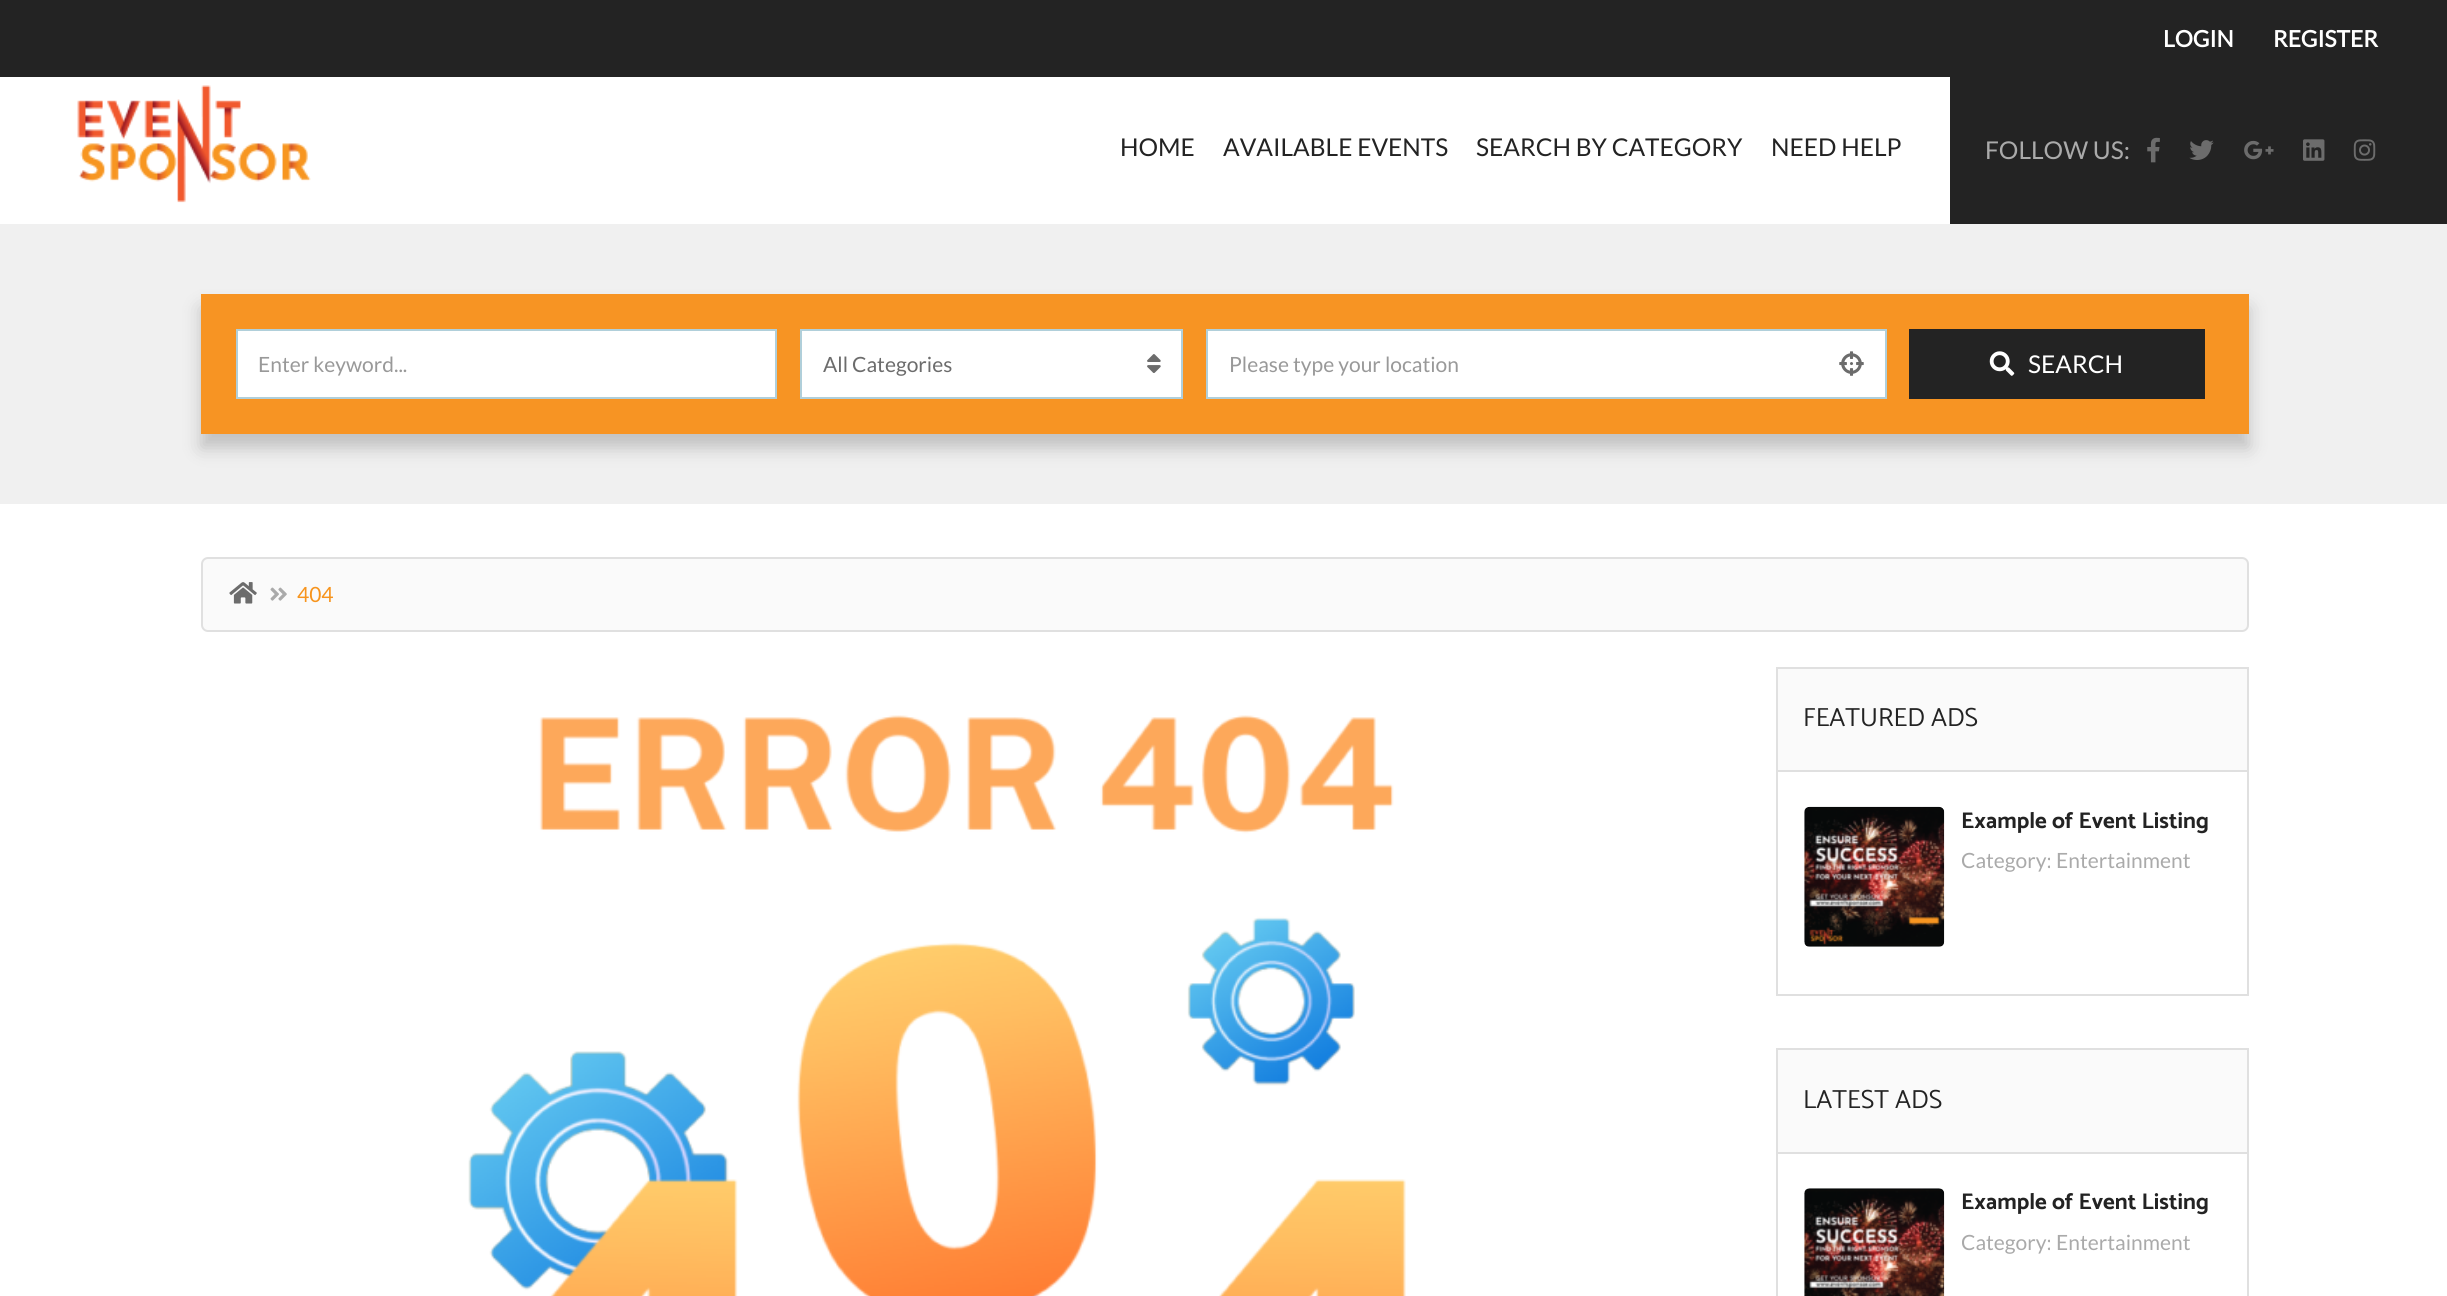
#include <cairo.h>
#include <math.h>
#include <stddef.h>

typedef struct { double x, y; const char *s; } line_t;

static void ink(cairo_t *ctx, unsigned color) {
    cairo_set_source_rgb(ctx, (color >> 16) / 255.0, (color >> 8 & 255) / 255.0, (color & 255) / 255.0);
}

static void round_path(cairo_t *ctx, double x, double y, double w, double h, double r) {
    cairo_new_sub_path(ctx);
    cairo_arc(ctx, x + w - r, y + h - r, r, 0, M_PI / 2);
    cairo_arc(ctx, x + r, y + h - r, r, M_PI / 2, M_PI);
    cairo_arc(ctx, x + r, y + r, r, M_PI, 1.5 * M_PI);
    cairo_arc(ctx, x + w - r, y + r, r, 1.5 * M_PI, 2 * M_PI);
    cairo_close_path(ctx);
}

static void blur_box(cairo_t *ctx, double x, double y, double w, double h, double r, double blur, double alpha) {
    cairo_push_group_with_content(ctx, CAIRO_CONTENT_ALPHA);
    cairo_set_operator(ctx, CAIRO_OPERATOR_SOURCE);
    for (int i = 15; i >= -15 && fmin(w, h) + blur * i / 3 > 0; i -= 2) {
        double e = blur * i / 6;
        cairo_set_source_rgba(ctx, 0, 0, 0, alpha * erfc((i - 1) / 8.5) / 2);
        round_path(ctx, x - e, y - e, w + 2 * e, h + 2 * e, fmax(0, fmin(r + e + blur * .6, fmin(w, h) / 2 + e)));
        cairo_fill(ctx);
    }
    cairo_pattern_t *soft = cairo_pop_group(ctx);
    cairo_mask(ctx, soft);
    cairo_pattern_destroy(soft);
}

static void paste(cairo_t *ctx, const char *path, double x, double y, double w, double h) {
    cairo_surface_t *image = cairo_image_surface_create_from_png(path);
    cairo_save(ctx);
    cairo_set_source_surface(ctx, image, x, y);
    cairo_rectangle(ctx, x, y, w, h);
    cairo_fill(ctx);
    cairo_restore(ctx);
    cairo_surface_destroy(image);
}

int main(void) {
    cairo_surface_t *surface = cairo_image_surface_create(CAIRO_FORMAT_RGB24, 2447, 1296);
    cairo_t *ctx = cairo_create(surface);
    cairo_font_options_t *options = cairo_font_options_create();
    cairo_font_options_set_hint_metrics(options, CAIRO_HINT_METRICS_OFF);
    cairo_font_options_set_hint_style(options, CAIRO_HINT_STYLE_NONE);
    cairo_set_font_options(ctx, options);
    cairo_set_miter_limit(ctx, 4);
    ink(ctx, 0xFFFFFF);
    cairo_paint(ctx);
    ink(ctx, 0x232323);
    cairo_rectangle(ctx, 0, 0, 2447, 77);
    cairo_fill(ctx);
    cairo_select_font_face(ctx, "Lato", CAIRO_FONT_SLANT_NORMAL, CAIRO_FONT_WEIGHT_BOLD);
    cairo_set_font_size(ctx, 22.75);
    ink(ctx, 0xFFFFFF);
    cairo_move_to(ctx, 2163, 47);
    cairo_show_text(ctx, "LOGIN");
    cairo_move_to(ctx, 2273, 47);
    cairo_show_text(ctx, "REGISTER");
    paste(ctx, "media/1.png", 77, 85, 234, 118);
    cairo_select_font_face(ctx, "Lato", CAIRO_FONT_SLANT_NORMAL, CAIRO_FONT_WEIGHT_NORMAL);
    cairo_set_font_size(ctx, 24.5);
    ink(ctx, 0x232323);
    {
        static const line_t items[] = {
            {1120, 156, "HOME"},
            {1223, 156, "AVAILABLE EVENTS"},
            {1476, 156, "SEARCH BY CATEGORY"},
            {1771, 156, "NEED HELP"},
        };
        for (size_t i = 0; i < sizeof items / sizeof *items; i++) {
            cairo_move_to(ctx, items[i].x, items[i].y);
            cairo_show_text(ctx, items[i].s);
        }
    }
    cairo_rectangle(ctx, 1950, 77, 497, 147);
    cairo_fill(ctx);
    ink(ctx, 0xAAAAAA);
    cairo_move_to(ctx, 1985, 159);
    cairo_show_text(ctx, "FOLLOW US:");
    paste(ctx, "media/2.png", 2147, 137, 13, 26);
    paste(ctx, "media/3.png", 2189, 140, 25, 20);
    paste(ctx, "media/4.png", 2244, 140, 30, 20);
    paste(ctx, "media/5.png", 2303, 139, 22, 22);
    paste(ctx, "media/6.png", 2353, 139, 23, 22);
    ink(ctx, 0xF0F0F0);
    cairo_rectangle(ctx, 0, 224, 2447, 280);
    cairo_fill(ctx);
    ink(ctx, 0x000000);
    blur_box(ctx, 201, 308, 2048, 140, 0, 9, 0.2);
    ink(ctx, 0xF79423);
    cairo_rectangle(ctx, 201, 294, 2048, 140);
    cairo_fill(ctx);
    ink(ctx, 0xFFFFFF);
    cairo_rectangle(ctx, 237, 330, 539, 68);
    cairo_fill_preserve(ctx);
    ink(ctx, 0xB0CFDA);
    cairo_stroke(ctx);
    cairo_set_font_size(ctx, 21);
    ink(ctx, 0x999999);
    cairo_move_to(ctx, 258, 372);
    cairo_show_text(ctx, "Enter keyword...");
    ink(ctx, 0xFFFFFF);
    cairo_rectangle(ctx, 801, 330, 381, 68);
    cairo_fill_preserve(ctx);
    ink(ctx, 0xB0CFDA);
    cairo_stroke(ctx);
    ink(ctx, 0x6C6C6C);
    cairo_move_to(ctx, 823, 372);
    cairo_show_text(ctx, "All Categories");
    paste(ctx, "media/7.png", 1147, 354, 14, 19);
    ink(ctx, 0xFFFFFF);
    cairo_rectangle(ctx, 1207, 330, 679, 68);
    cairo_fill_preserve(ctx);
    ink(ctx, 0xB0CFDA);
    cairo_stroke(ctx);
    ink(ctx, 0x999999);
    cairo_move_to(ctx, 1229, 372);
    cairo_show_text(ctx, "Please type your location");
    paste(ctx, "media/8.png", 1839, 351, 25, 25);
    ink(ctx, 0x232323);
    cairo_rectangle(ctx, 1909, 329, 296, 70);
    cairo_fill(ctx);
    paste(ctx, "media/9.png", 1989, 351, 26, 25);
    cairo_set_font_size(ctx, 24.5);
    ink(ctx, 0xFFFFFF);
    cairo_move_to(ctx, 2028, 373);
    cairo_show_text(ctx, "SEARCH");
    ink(ctx, 0xFAFAFA);
    round_path(ctx, 202, 558, 2046, 73, 6);
    cairo_fill_preserve(ctx);
    ink(ctx, 0xE0E0E0);
    cairo_stroke(ctx);
    paste(ctx, "media/10.png", 229, 582, 28, 22);
    paste(ctx, "media/11.png", 270, 587, 17, 14);
    cairo_set_font_size(ctx, 21);
    ink(ctx, 0xF7941D);
    cairo_move_to(ctx, 297, 602);
    cairo_show_text(ctx, "404");
    paste(ctx, "media/12.png", 468, 715, 938, 581);
    cairo_rectangle(ctx, 1777, 668, 471, 327);
    ink(ctx, 0xE0E0E0);
    cairo_stroke(ctx);
    ink(ctx, 0xFAFAFA);
    cairo_rectangle(ctx, 1778, 669, 469, 101);
    cairo_fill(ctx);
    ink(ctx, 0xE0E0E0);
    cairo_rectangle(ctx, 1778, 770, 469, 2);
    cairo_fill(ctx);
    cairo_select_font_face(ctx, "Catamaran", CAIRO_FONT_SLANT_NORMAL, CAIRO_FONT_WEIGHT_NORMAL);
    cairo_set_font_size(ctx, 26.25);
    ink(ctx, 0x232323);
    cairo_move_to(ctx, 1803, 726);
    cairo_show_text(ctx, "FEATURED ADS");
    paste(ctx, "media/13.png", 1804, 806, 141, 141);
    cairo_select_font_face(ctx, "Catamaran", CAIRO_FONT_SLANT_NORMAL, CAIRO_FONT_WEIGHT_BOLD);
    cairo_set_font_size(ctx, 22.75);
    cairo_move_to(ctx, 1961, 828);
    cairo_show_text(ctx, "Example of Event Listing");
    cairo_save(ctx);
    cairo_rectangle(ctx, 1962, 807, 259, 152);
    cairo_clip(ctx);
    cairo_select_font_face(ctx, "Lato", CAIRO_FONT_SLANT_NORMAL, CAIRO_FONT_WEIGHT_NORMAL);
    cairo_set_font_size(ctx, 21);
    ink(ctx, 0xAAAAAA);
    cairo_move_to(ctx, 1961, 868);
    cairo_show_text(ctx, "Category:");
    cairo_restore(ctx);
    cairo_select_font_face(ctx, "Lato", CAIRO_FONT_SLANT_NORMAL, CAIRO_FONT_WEIGHT_NORMAL);
    cairo_set_font_size(ctx, 21);
    ink(ctx, 0xAAAAAA);
    cairo_move_to(ctx, 2056, 868);
    cairo_show_text(ctx, "Entertainment");
    cairo_rectangle(ctx, 1777, 1049, 471, 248);
    ink(ctx, 0xE0E0E0);
    cairo_stroke(ctx);
    ink(ctx, 0xFAFAFA);
    cairo_rectangle(ctx, 1778, 1050, 469, 102);
    cairo_fill(ctx);
    ink(ctx, 0xE0E0E0);
    cairo_rectangle(ctx, 1778, 1152, 469, 2);
    cairo_fill(ctx);
    cairo_select_font_face(ctx, "Catamaran", CAIRO_FONT_SLANT_NORMAL, CAIRO_FONT_WEIGHT_NORMAL);
    cairo_set_font_size(ctx, 26.25);
    ink(ctx, 0x232323);
    cairo_move_to(ctx, 1803, 1108);
    cairo_show_text(ctx, "LATEST ADS");
    paste(ctx, "media/14.png", 1804, 1188, 141, 108);
    cairo_select_font_face(ctx, "Catamaran", CAIRO_FONT_SLANT_NORMAL, CAIRO_FONT_WEIGHT_BOLD);
    cairo_set_font_size(ctx, 22.75);
    cairo_move_to(ctx, 1961, 1209);
    cairo_show_text(ctx, "Example of Event Listing");
    cairo_save(ctx);
    cairo_rectangle(ctx, 1962, 1188, 259, 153);
    cairo_clip(ctx);
    cairo_select_font_face(ctx, "Lato", CAIRO_FONT_SLANT_NORMAL, CAIRO_FONT_WEIGHT_NORMAL);
    cairo_set_font_size(ctx, 21);
    ink(ctx, 0xAAAAAA);
    cairo_move_to(ctx, 1961, 1250);
    cairo_show_text(ctx, "Category:");
    cairo_restore(ctx);
    cairo_select_font_face(ctx, "Lato", CAIRO_FONT_SLANT_NORMAL, CAIRO_FONT_WEIGHT_NORMAL);
    cairo_set_font_size(ctx, 21);
    ink(ctx, 0xAAAAAA);
    cairo_move_to(ctx, 2056, 1250);
    cairo_show_text(ctx, "Entertainment");
    cairo_surface_write_to_png(surface, "image.png");
    cairo_font_options_destroy(options);
    cairo_destroy(ctx);
    cairo_surface_destroy(surface);
    return 0;
}
